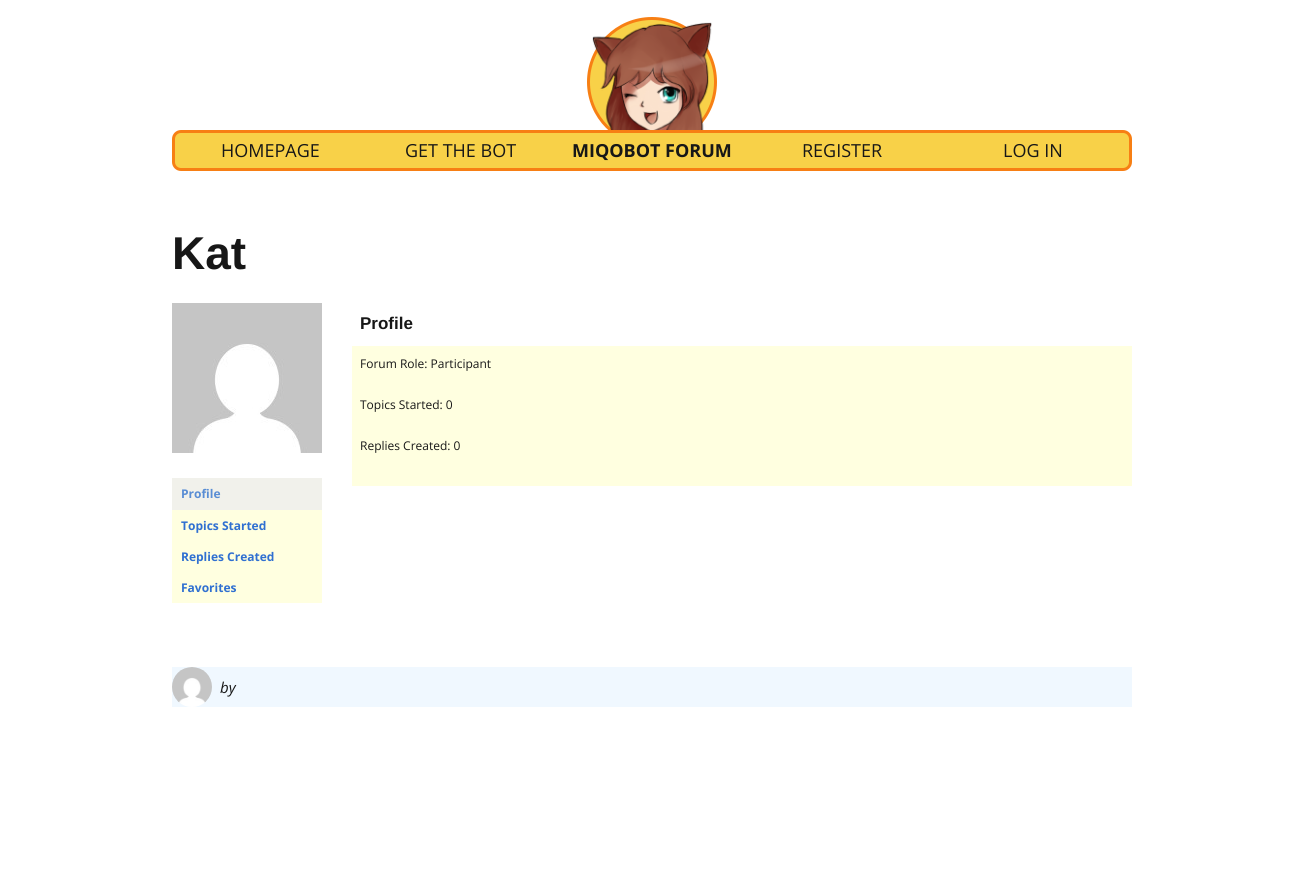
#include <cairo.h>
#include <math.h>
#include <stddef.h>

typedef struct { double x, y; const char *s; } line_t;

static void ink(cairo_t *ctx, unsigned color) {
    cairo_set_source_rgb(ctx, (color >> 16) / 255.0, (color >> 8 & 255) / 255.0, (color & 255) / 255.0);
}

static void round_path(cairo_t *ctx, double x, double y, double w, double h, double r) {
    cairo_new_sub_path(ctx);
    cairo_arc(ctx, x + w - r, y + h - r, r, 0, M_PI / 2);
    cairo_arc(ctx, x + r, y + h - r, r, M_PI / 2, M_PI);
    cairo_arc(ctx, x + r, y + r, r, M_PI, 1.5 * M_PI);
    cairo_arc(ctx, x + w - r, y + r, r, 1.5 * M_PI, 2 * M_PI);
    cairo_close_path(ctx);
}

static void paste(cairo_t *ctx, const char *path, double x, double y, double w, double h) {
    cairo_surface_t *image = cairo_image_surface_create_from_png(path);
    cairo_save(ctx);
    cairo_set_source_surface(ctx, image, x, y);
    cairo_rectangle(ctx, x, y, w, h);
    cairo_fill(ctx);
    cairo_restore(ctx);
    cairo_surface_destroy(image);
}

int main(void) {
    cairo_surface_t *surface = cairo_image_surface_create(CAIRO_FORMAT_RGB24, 1303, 895);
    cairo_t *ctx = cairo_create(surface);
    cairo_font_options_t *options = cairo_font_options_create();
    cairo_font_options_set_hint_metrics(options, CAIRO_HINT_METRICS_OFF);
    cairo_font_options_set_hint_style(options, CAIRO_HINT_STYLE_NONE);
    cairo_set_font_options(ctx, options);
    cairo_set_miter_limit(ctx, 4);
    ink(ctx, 0xFFFFFF);
    cairo_paint(ctx);
    ink(ctx, 0xF8D148);
    cairo_arc(ctx, 652, 82, 63.5, 0, 2 * M_PI);
    cairo_fill_preserve(ctx);
    ink(ctx, 0xF77F14);
    cairo_set_line_width(ctx, 3);
    cairo_stroke(ctx);
    paste(ctx, "media/1.png", 592, 22, 120, 108);
    ink(ctx, 0xF8D148);
    round_path(ctx, 173.5, 131.5, 957, 38, 7.5);
    cairo_fill_preserve(ctx);
    ink(ctx, 0xF77F14);
    cairo_stroke(ctx);
    cairo_select_font_face(ctx, "Open Sans", CAIRO_FONT_SLANT_NORMAL, CAIRO_FONT_WEIGHT_NORMAL);
    cairo_set_font_size(ctx, 18);
    ink(ctx, 0x171717);
    cairo_move_to(ctx, 221, 157);
    cairo_show_text(ctx, "HOMEPAGE");
    cairo_move_to(ctx, 405, 157);
    cairo_show_text(ctx, "GET THE BOT");
    cairo_select_font_face(ctx, "Open Sans", CAIRO_FONT_SLANT_NORMAL, CAIRO_FONT_WEIGHT_BOLD);
    cairo_move_to(ctx, 572, 157);
    cairo_show_text(ctx, "MIQOBOT FORUM");
    cairo_select_font_face(ctx, "Open Sans", CAIRO_FONT_SLANT_NORMAL, CAIRO_FONT_WEIGHT_NORMAL);
    cairo_move_to(ctx, 802, 157);
    cairo_show_text(ctx, "REGISTER");
    cairo_move_to(ctx, 1003, 157);
    cairo_show_text(ctx, "LOG IN");
    cairo_select_font_face(ctx, "Liberation Sans", CAIRO_FONT_SLANT_NORMAL, CAIRO_FONT_WEIGHT_BOLD);
    cairo_set_font_size(ctx, 46);
    cairo_move_to(ctx, 172, 269);
    cairo_show_text(ctx, "Kat");
    cairo_set_font_size(ctx, 17);
    cairo_move_to(ctx, 360, 329);
    cairo_show_text(ctx, "Profile");
    ink(ctx, 0xFFFFE0);
    cairo_rectangle(ctx, 352, 346, 780, 140);
    cairo_fill(ctx);
    cairo_select_font_face(ctx, "Open Sans", CAIRO_FONT_SLANT_NORMAL, CAIRO_FONT_WEIGHT_NORMAL);
    cairo_set_font_size(ctx, 12);
    ink(ctx, 0x171717);
    {
        static const line_t items[] = {
            {360, 368, "Forum Role: Participant"},
            {360, 409, "Topics Started: 0"},
            {360, 450, "Replies Created: 0"},
        };
        for (size_t i = 0; i < sizeof items / sizeof *items; i++) {
            cairo_move_to(ctx, items[i].x, items[i].y);
            cairo_show_text(ctx, items[i].s);
        }
    }
    paste(ctx, "media/2.png", 172, 303, 150, 150);
    ink(ctx, 0xFFFFE0);
    cairo_rectangle(ctx, 172, 510, 150, 93);
    cairo_fill(ctx);
    ink(ctx, 0xF1F1EB);
    cairo_rectangle(ctx, 172, 478, 150, 32);
    cairo_fill(ctx);
    cairo_select_font_face(ctx, "Open Sans", CAIRO_FONT_SLANT_NORMAL, CAIRO_FONT_WEIGHT_BOLD);
    ink(ctx, 0x598DD4);
    cairo_move_to(ctx, 181, 498);
    cairo_show_text(ctx, "Profile");
    ink(ctx, 0x3070D1);
    {
        static const line_t items[] = {
            {181, 530, "Topics Started"},
            {181, 561, "Replies Created"},
            {181, 592, "Favorites"},
        };
        for (size_t i = 0; i < sizeof items / sizeof *items; i++) {
            cairo_move_to(ctx, items[i].x, items[i].y);
            cairo_show_text(ctx, items[i].s);
        }
    }
    ink(ctx, 0xF0F8FF);
    cairo_rectangle(ctx, 172, 667, 960, 40);
    cairo_fill(ctx);
    paste(ctx, "media/3.png", 172, 667, 40, 40);
    cairo_select_font_face(ctx, "Open Sans", CAIRO_FONT_SLANT_ITALIC, CAIRO_FONT_WEIGHT_NORMAL);
    cairo_set_font_size(ctx, 15);
    ink(ctx, 0x171717);
    cairo_move_to(ctx, 220, 693);
    cairo_show_text(ctx, "by");
    cairo_surface_write_to_png(surface, "image.png");
    cairo_font_options_destroy(options);
    cairo_destroy(ctx);
    cairo_surface_destroy(surface);
    return 0;
}
